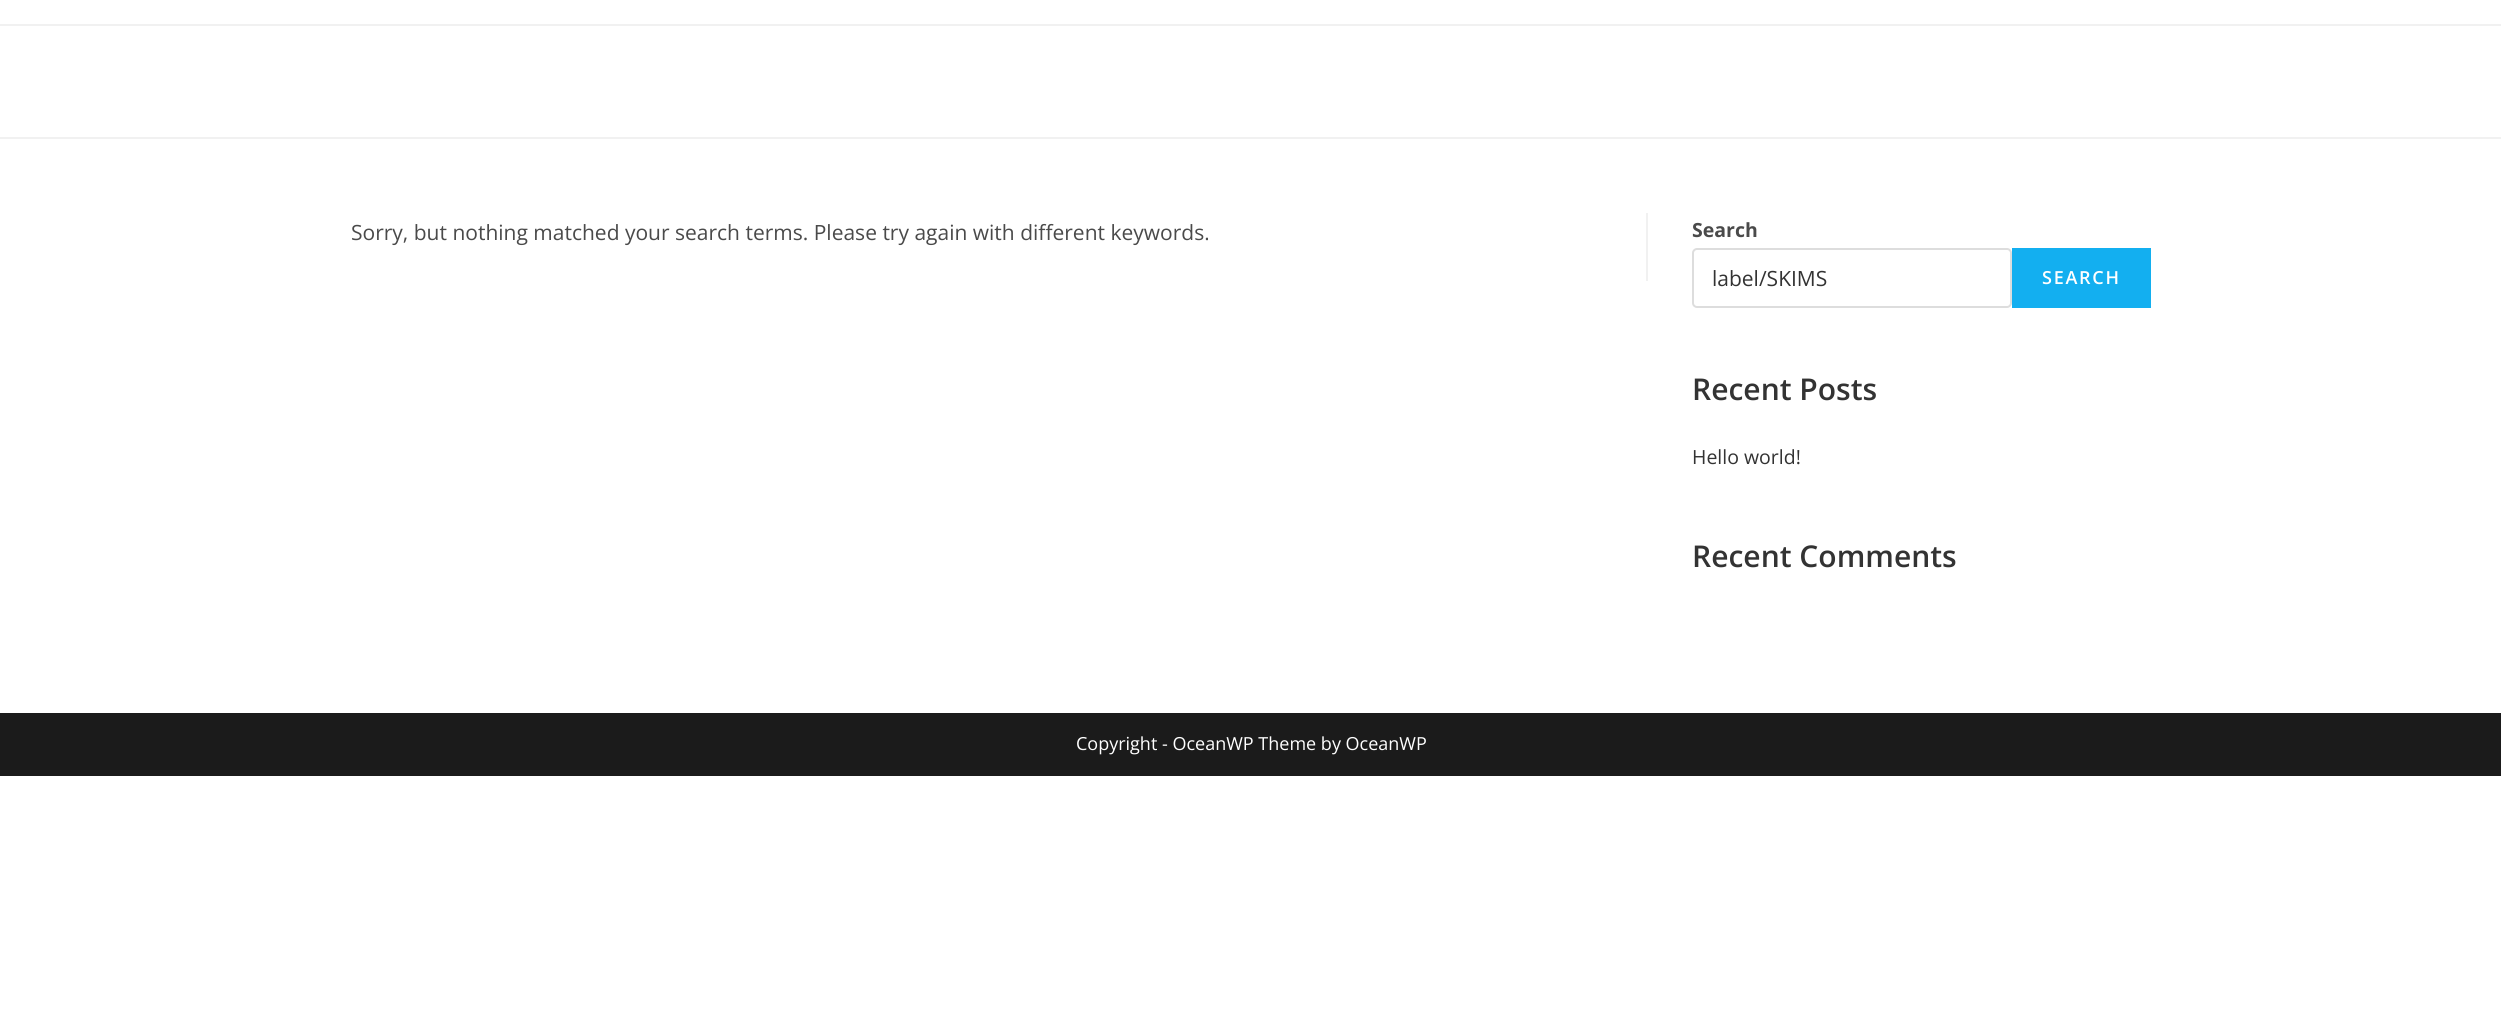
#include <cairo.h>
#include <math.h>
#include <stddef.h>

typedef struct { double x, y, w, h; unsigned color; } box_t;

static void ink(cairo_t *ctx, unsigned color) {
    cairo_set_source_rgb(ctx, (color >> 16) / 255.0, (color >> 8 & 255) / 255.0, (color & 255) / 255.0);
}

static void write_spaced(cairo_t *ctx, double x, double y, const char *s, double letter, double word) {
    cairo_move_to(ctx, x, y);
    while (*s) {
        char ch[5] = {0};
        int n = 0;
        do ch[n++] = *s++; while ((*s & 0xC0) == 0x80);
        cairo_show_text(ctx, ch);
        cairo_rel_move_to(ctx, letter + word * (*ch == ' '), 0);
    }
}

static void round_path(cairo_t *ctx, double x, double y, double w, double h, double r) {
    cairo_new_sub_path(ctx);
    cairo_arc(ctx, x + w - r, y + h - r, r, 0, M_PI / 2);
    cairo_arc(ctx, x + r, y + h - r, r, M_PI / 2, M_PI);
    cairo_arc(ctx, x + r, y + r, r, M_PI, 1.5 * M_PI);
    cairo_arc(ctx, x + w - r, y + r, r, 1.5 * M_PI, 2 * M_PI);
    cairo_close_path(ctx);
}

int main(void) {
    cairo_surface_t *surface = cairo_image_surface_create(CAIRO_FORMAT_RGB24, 2501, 1032);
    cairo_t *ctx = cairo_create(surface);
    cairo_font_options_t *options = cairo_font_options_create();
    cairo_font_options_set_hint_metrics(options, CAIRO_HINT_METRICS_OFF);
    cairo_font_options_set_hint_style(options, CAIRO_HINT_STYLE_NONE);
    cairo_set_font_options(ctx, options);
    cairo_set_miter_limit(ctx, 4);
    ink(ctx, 0xFFFFFF);
    cairo_paint(ctx);
    {
        static const box_t items[] = {
            {0, 24, 2501, 2, 0xF1F1F1},
            {0, 137, 2501, 2, 0xF1F1F1},
            {1646, 213, 2, 68, 0xF1F1F1},
        };
        for (size_t i = 0; i < sizeof items / sizeof *items; i++) {
            ink(ctx, items[i].color);
            cairo_rectangle(ctx, items[i].x, items[i].y, items[i].w, items[i].h);
            cairo_fill(ctx);
        }
    }
    cairo_select_font_face(ctx, "Open Sans", CAIRO_FONT_SLANT_NORMAL, CAIRO_FONT_WEIGHT_NORMAL);
    cairo_set_font_size(ctx, 21);
    ink(ctx, 0x4A4A4A);
    cairo_move_to(ctx, 351, 240);
    cairo_show_text(ctx, "Sorry, but nothing matched your search terms. Please try again with different keywords.");
    cairo_select_font_face(ctx, "Open Sans", CAIRO_FONT_SLANT_NORMAL, CAIRO_FONT_WEIGHT_BOLD);
    cairo_set_font_size(ctx, 19.5);
    cairo_move_to(ctx, 1692, 237);
    cairo_show_text(ctx, "Search");
    round_path(ctx, 1693, 249, 318, 58, 4);
    ink(ctx, 0xDDDDDD);
    cairo_stroke(ctx);
    cairo_select_font_face(ctx, "Open Sans", CAIRO_FONT_SLANT_NORMAL, CAIRO_FONT_WEIGHT_NORMAL);
    cairo_set_font_size(ctx, 21);
    ink(ctx, 0x333333);
    cairo_move_to(ctx, 1712, 286);
    cairo_show_text(ctx, "label/SKIMS");
    ink(ctx, 0x13AFF0);
    cairo_rectangle(ctx, 2012, 248, 139, 60);
    cairo_fill(ctx);
    cairo_select_font_face(ctx, "Open Sans SemiBold", CAIRO_FONT_SLANT_NORMAL, CAIRO_FONT_WEIGHT_NORMAL);
    cairo_set_font_size(ctx, 18);
    ink(ctx, 0xFFFFFF);
    write_spaced(ctx, 2042, 284, "SEARCH", 1.75, 0);
    cairo_set_font_size(ctx, 30);
    ink(ctx, 0x333333);
    cairo_move_to(ctx, 1692, 400);
    cairo_show_text(ctx, "Recent Posts");
    cairo_select_font_face(ctx, "Open Sans", CAIRO_FONT_SLANT_NORMAL, CAIRO_FONT_WEIGHT_NORMAL);
    cairo_set_font_size(ctx, 19.5);
    cairo_move_to(ctx, 1692, 464);
    cairo_show_text(ctx, "Hello world!");
    cairo_select_font_face(ctx, "Open Sans SemiBold", CAIRO_FONT_SLANT_NORMAL, CAIRO_FONT_WEIGHT_NORMAL);
    cairo_set_font_size(ctx, 30);
    cairo_move_to(ctx, 1692, 567);
    cairo_show_text(ctx, "Recent Comments");
    ink(ctx, 0x1B1B1B);
    cairo_rectangle(ctx, 0, 713, 2501, 63);
    cairo_fill(ctx);
    cairo_select_font_face(ctx, "Open Sans", CAIRO_FONT_SLANT_NORMAL, CAIRO_FONT_WEIGHT_NORMAL);
    cairo_set_font_size(ctx, 18);
    ink(ctx, 0xFFFFFF);
    cairo_move_to(ctx, 1076, 750);
    cairo_show_text(ctx, "Copyright - OceanWP Theme by OceanWP");
    cairo_surface_write_to_png(surface, "image.png");
    cairo_font_options_destroy(options);
    cairo_destroy(ctx);
    cairo_surface_destroy(surface);
    return 0;
}
